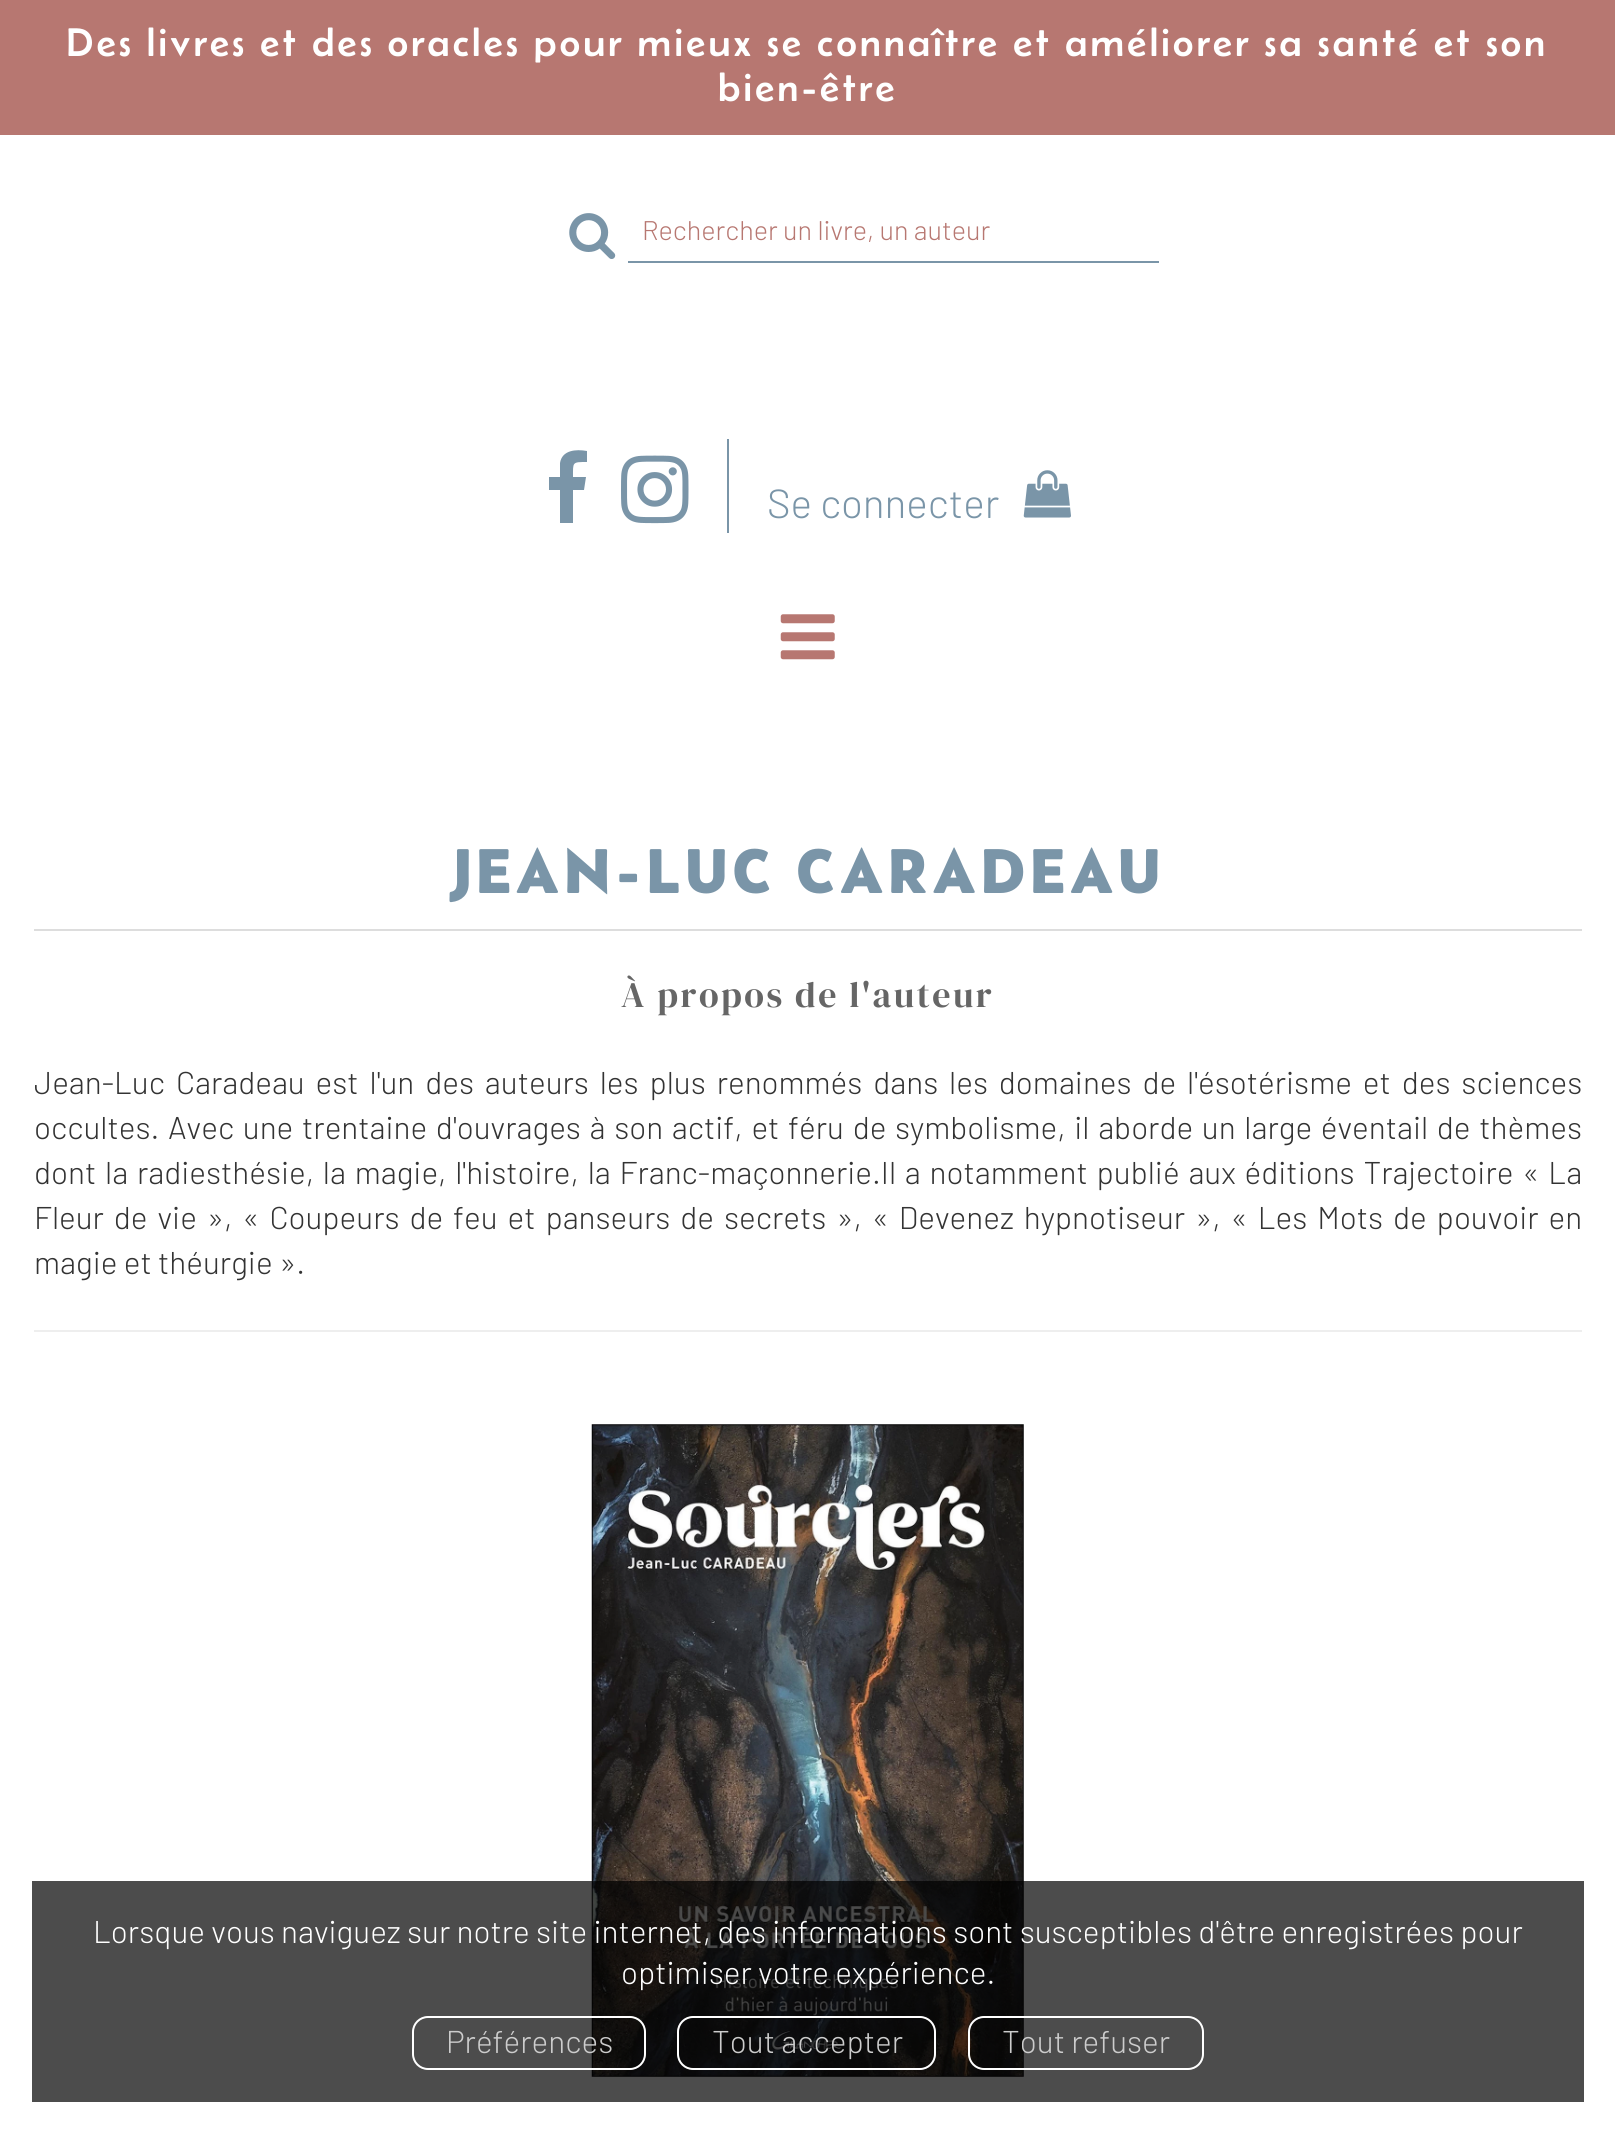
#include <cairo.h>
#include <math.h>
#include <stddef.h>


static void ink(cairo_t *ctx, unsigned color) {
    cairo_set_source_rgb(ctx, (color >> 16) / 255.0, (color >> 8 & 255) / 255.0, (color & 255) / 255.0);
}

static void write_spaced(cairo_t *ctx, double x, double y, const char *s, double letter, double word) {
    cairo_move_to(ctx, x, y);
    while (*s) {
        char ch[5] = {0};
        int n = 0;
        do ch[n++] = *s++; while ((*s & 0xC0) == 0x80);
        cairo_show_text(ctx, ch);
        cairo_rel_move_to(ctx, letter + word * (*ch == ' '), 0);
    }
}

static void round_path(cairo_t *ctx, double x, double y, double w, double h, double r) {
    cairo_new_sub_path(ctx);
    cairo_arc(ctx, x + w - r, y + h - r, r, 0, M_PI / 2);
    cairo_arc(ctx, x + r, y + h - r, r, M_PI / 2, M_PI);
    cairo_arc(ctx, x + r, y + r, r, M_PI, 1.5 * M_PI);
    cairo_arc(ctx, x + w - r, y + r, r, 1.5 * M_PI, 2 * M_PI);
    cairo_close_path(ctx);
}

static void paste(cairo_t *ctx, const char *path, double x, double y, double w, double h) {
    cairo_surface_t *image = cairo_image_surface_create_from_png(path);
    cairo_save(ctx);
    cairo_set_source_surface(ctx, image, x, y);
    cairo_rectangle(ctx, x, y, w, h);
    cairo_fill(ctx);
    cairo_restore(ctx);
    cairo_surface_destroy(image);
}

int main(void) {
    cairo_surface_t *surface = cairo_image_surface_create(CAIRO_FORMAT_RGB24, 1615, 2131);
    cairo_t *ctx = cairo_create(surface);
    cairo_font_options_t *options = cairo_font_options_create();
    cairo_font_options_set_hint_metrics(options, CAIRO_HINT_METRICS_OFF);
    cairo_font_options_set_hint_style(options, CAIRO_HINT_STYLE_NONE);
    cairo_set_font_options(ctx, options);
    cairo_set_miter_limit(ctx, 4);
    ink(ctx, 0xFFFFFF);
    cairo_paint(ctx);
    ink(ctx, 0xB77771);
    cairo_rectangle(ctx, 0, 0, 1615, 135);
    cairo_fill(ctx);
    cairo_select_font_face(ctx, "Belanosima", CAIRO_FONT_SLANT_NORMAL, CAIRO_FONT_WEIGHT_NORMAL);
    cairo_set_font_size(ctx, 40.5);
    ink(ctx, 0xFFFFFF);
    write_spaced(ctx, 66, 56, "Des livres et des oracles pour mieux se connaître et améliorer sa santé et son", 2.83, 0);
    write_spaced(ctx, 718, 101, "bien-être", 2.83, 0);
    paste(ctx, "media/1.png", 569, 213, 47, 46);
    ink(ctx, 0x7A95A8);
    cairo_rectangle(ctx, 628, 261, 531, 2);
    cairo_fill(ctx);
    cairo_select_font_face(ctx, "Barlow Light", CAIRO_FONT_SLANT_NORMAL, CAIRO_FONT_WEIGHT_NORMAL);
    cairo_set_font_size(ctx, 27);
    ink(ctx, 0xB77771);
    cairo_move_to(ctx, 642, 240);
    cairo_show_text(ctx, "Rechercher un livre, un auteur");
    ink(ctx, 0x7A95A8);
    cairo_new_path(ctx);
    cairo_move_to(ctx, 587, 451);
    cairo_line_to(ctx, 587, 462);
    cairo_curve_to(ctx, 572, 462, 573, 462, 573, 477);
    cairo_line_to(ctx, 586, 477);
    cairo_line_to(ctx, 584, 490);
    cairo_line_to(ctx, 573, 490);
    cairo_line_to(ctx, 573, 523);
    cairo_line_to(ctx, 560, 523);
    cairo_line_to(ctx, 560, 490);
    cairo_line_to(ctx, 549, 490);
    cairo_line_to(ctx, 549, 477);
    cairo_line_to(ctx, 560, 477);
    cairo_line_to(ctx, 560, 463);
    cairo_curve_to(ctx, 562, 450, 576, 449, 587, 451);
    cairo_close_path(ctx);
    cairo_fill(ctx);
    cairo_rectangle(ctx, 727, 439, 2, 94);
    cairo_fill(ctx);
    paste(ctx, "media/2.png", 621, 455, 68, 69);
    cairo_set_font_size(ctx, 40.5);
    cairo_move_to(ctx, 767, 518);
    cairo_show_text(ctx, "Se connecter");
    paste(ctx, "media/3.png", 1023, 470, 48, 48);
    paste(ctx, "media/4.png", 780, 614, 55, 46);
    cairo_select_font_face(ctx, "Belanosima SemiBold", CAIRO_FONT_SLANT_NORMAL, CAIRO_FONT_WEIGHT_NORMAL);
    cairo_set_font_size(ctx, 63);
    write_spaced(ctx, 450, 893, "JEAN-LUC CARADEAU", 4.4, 0);
    ink(ctx, 0xDDDDDD);
    cairo_rectangle(ctx, 34, 929, 1548, 2);
    cairo_fill(ctx);
    cairo_select_font_face(ctx, "DM Serif Display", CAIRO_FONT_SLANT_NORMAL, CAIRO_FONT_WEIGHT_NORMAL);
    cairo_set_font_size(ctx, 36);
    ink(ctx, 0x666666);
    write_spaced(ctx, 621, 1007, "À propos de l'auteur", 2.5, 0);
    cairo_select_font_face(ctx, "Barlow Light", CAIRO_FONT_SLANT_NORMAL, CAIRO_FONT_WEIGHT_NORMAL);
    cairo_set_font_size(ctx, 31.5);
    ink(ctx, 0x333333);
    write_spaced(ctx, 34, 1094, "Jean-Luc Caradeau est l'un des auteurs les plus renommés dans les domaines de l'ésotérisme et des sciences", 0, 4.6);
    write_spaced(ctx, 34, 1139, "occultes. Avec une trentaine d'ouvrages à son actif, et féru de symbolisme, il aborde un large éventail de thèmes", 0, 2.4);
    write_spaced(ctx, 34, 1184, "dont la radiesthésie, la magie, l'histoire, la Franc-maçonnerie.Il a notamment publié aux éditions Trajectoire « La", 0, 2.5);
    write_spaced(ctx, 34, 1229, "Fleur de vie », « Coupeurs de feu et panseurs de secrets », « Devenez hypnotiseur », « Les Mots de pouvoir en", 0, 3.6);
    cairo_move_to(ctx, 34, 1274);
    cairo_show_text(ctx, "magie et théurgie ».");
    ink(ctx, 0xEEEEEE);
    cairo_rectangle(ctx, 34, 1330, 1548, 2);
    cairo_fill(ctx);
    paste(ctx, "media/5.png", 591, 1424, 433, 653);
    cairo_set_source_rgba(ctx, 0, 0, 0, 0.7);
    cairo_rectangle(ctx, 32, 1881, 1552, 221);
    cairo_fill(ctx);
    ink(ctx, 0xFFFFFF);
    cairo_move_to(ctx, 93, 1943);
    cairo_show_text(ctx, "Lorsque vous naviguez sur notre site internet, des informations sont susceptibles d'être enregistrées pour");
    cairo_move_to(ctx, 621, 1984);
    cairo_show_text(ctx, "optimiser votre expérience.");
    round_path(ctx, 413, 2017, 232, 52, 15);
    cairo_stroke(ctx);
    ink(ctx, 0xCCCCCC);
    cairo_move_to(ctx, 446, 2053);
    cairo_show_text(ctx, "Préférences");
    round_path(ctx, 678, 2017, 257, 52, 15);
    ink(ctx, 0xFFFFFF);
    cairo_stroke(ctx);
    ink(ctx, 0xCCCCCC);
    cairo_move_to(ctx, 712, 2053);
    cairo_show_text(ctx, "Tout accepter");
    round_path(ctx, 969, 2017, 234, 52, 15);
    ink(ctx, 0xFFFFFF);
    cairo_stroke(ctx);
    ink(ctx, 0xCCCCCC);
    cairo_move_to(ctx, 1002, 2053);
    cairo_show_text(ctx, "Tout refuser");
    cairo_surface_write_to_png(surface, "image.png");
    cairo_font_options_destroy(options);
    cairo_destroy(ctx);
    cairo_surface_destroy(surface);
    return 0;
}
